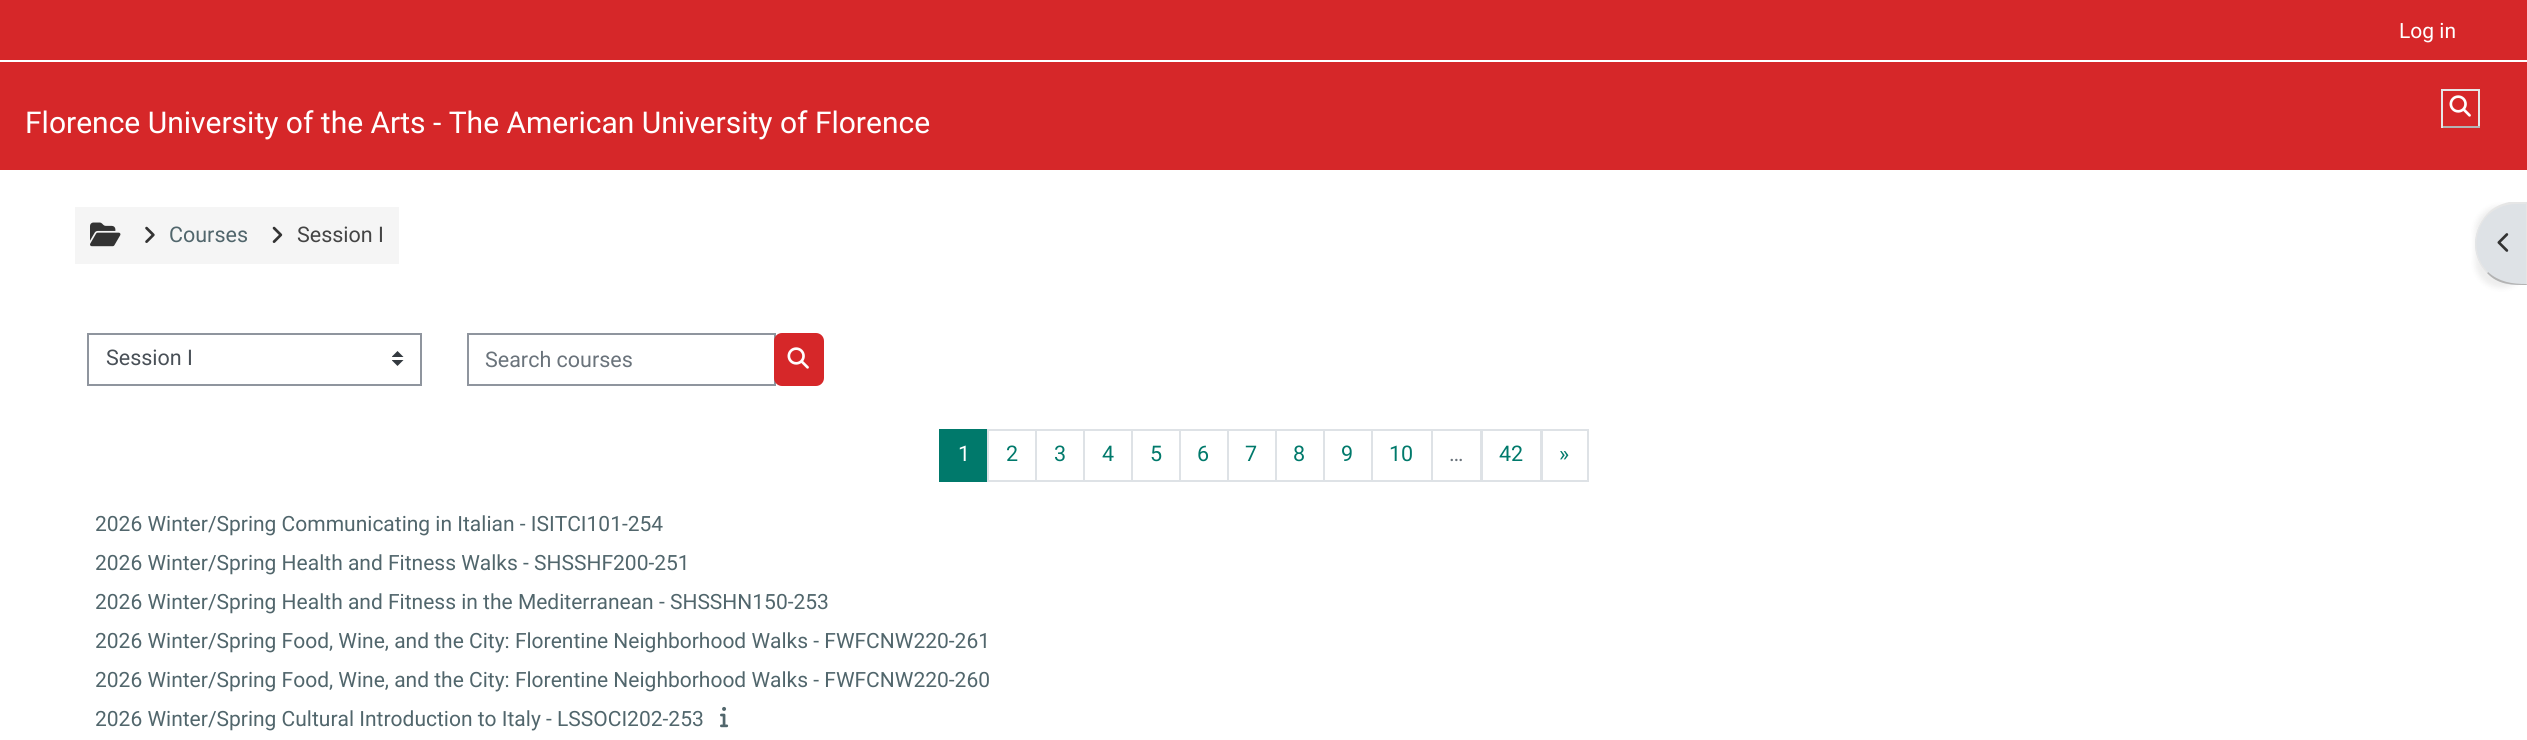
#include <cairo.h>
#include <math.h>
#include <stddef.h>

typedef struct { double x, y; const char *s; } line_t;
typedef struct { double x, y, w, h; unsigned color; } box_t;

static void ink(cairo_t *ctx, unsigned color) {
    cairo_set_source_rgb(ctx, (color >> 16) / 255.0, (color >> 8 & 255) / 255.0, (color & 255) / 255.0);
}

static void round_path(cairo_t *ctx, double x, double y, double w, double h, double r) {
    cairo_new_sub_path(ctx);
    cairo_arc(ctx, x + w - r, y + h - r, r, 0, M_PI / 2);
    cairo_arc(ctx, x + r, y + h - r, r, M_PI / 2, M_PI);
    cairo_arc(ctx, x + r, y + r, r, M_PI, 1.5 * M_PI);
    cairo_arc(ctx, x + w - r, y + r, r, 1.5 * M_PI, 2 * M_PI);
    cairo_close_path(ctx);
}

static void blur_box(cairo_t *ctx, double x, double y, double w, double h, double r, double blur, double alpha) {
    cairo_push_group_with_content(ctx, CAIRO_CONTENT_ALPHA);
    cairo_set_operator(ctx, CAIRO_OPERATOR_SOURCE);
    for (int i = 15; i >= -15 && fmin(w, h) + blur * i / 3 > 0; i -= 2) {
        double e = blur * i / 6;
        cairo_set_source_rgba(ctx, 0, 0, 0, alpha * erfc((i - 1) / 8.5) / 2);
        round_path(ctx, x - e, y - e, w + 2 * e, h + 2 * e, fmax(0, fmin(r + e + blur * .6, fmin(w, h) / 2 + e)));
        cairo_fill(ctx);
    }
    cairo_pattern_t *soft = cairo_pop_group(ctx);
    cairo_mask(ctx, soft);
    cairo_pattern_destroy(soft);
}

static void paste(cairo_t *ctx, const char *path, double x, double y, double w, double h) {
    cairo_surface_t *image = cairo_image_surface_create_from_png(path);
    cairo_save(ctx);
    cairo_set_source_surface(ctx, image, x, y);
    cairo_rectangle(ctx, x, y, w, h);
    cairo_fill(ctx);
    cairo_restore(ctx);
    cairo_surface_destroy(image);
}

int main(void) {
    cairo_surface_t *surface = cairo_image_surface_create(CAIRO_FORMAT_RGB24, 2527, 740);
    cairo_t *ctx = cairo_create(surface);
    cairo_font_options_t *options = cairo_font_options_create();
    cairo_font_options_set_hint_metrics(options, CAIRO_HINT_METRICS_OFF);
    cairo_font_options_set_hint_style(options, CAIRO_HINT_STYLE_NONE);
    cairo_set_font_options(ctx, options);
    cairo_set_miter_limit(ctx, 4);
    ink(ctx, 0xFFFFFF);
    cairo_paint(ctx);
    ink(ctx, 0xD62729);
    cairo_rectangle(ctx, 0, 0, 2527, 170);
    cairo_fill(ctx);
    ink(ctx, 0xFFFFFF);
    cairo_rectangle(ctx, 0, 60, 2527, 2);
    cairo_fill(ctx);
    cairo_select_font_face(ctx, "Roboto", CAIRO_FONT_SLANT_NORMAL, CAIRO_FONT_WEIGHT_NORMAL);
    cairo_set_font_size(ctx, 21);
    cairo_move_to(ctx, 2399, 38);
    cairo_show_text(ctx, "Log in");
    cairo_set_font_size(ctx, 30);
    cairo_move_to(ctx, 25, 133);
    cairo_show_text(ctx, "Florence University of the Arts - The American University of Florence");
    {
        static const box_t items[] = {
            {2441, 89, 39, 2, 0xE6E6E6},
            {2478, 89, 2, 39, 0xE6E6E6},
            {2441, 126, 39, 2, 0xB3B3B3},
            {2441, 89, 2, 39, 0xE6E6E6},
        };
        for (size_t i = 0; i < sizeof items / sizeof *items; i++) {
            ink(ctx, items[i].color);
            cairo_rectangle(ctx, items[i].x, items[i].y, items[i].w, items[i].h);
            cairo_fill(ctx);
        }
    }
    paste(ctx, "media/1.png", 2449, 95, 22, 22);
    ink(ctx, 0xF5F5F5);
    cairo_rectangle(ctx, 75, 207, 324, 57);
    cairo_fill(ctx);
    paste(ctx, "media/2.png", 90, 222, 31, 25);
    paste(ctx, "media/3.png", 145, 226, 10, 17);
    cairo_set_font_size(ctx, 21.5);
    ink(ctx, 0x51666C);
    cairo_move_to(ctx, 169, 242);
    cairo_show_text(ctx, "Courses");
    paste(ctx, "media/4.png", 272, 226, 11, 17);
    ink(ctx, 0x444444);
    cairo_move_to(ctx, 297, 242);
    cairo_show_text(ctx, "Session I");
    paste(ctx, "media/5.png", 392, 351, 12, 15);
    cairo_rectangle(ctx, 88, 334, 333, 51);
    ink(ctx, 0x8F959E);
    cairo_stroke(ctx);
    ink(ctx, 0x495057);
    cairo_move_to(ctx, 106, 365);
    cairo_show_text(ctx, "Session I");
    cairo_rectangle(ctx, 468, 334, 307, 51);
    ink(ctx, 0x8F959E);
    cairo_stroke(ctx);
    ink(ctx, 0x6A737B);
    cairo_move_to(ctx, 485, 367);
    cairo_show_text(ctx, "Search courses");
    ink(ctx, 0xD62729);
    round_path(ctx, 774, 333, 50, 53, 8);
    cairo_fill(ctx);
    paste(ctx, "media/1.png", 787, 347, 22, 22);
    ink(ctx, 0x00796B);
    cairo_rectangle(ctx, 939, 429, 48, 53);
    cairo_fill(ctx);
    ink(ctx, 0xFFFFFF);
    cairo_move_to(ctx, 958, 461);
    cairo_show_text(ctx, "1");
    cairo_rectangle(ctx, 988, 430, 48, 51);
    ink(ctx, 0xDEE2E6);
    cairo_stroke(ctx);
    ink(ctx, 0x00796B);
    cairo_move_to(ctx, 1006, 461);
    cairo_show_text(ctx, "2");
    cairo_rectangle(ctx, 1036, 430, 48, 51);
    ink(ctx, 0xDEE2E6);
    cairo_stroke(ctx);
    ink(ctx, 0x00796B);
    cairo_move_to(ctx, 1054, 461);
    cairo_show_text(ctx, "3");
    cairo_rectangle(ctx, 1084, 430, 48, 51);
    ink(ctx, 0xDEE2E6);
    cairo_stroke(ctx);
    ink(ctx, 0x00796B);
    cairo_move_to(ctx, 1102, 461);
    cairo_show_text(ctx, "4");
    cairo_rectangle(ctx, 1132, 430, 48, 51);
    ink(ctx, 0xDEE2E6);
    cairo_stroke(ctx);
    ink(ctx, 0x00796B);
    cairo_move_to(ctx, 1150, 461);
    cairo_show_text(ctx, "5");
    cairo_rectangle(ctx, 1180, 430, 48, 51);
    ink(ctx, 0xDEE2E6);
    cairo_stroke(ctx);
    ink(ctx, 0x00796B);
    cairo_move_to(ctx, 1197, 461);
    cairo_show_text(ctx, "6");
    cairo_rectangle(ctx, 1228, 430, 48, 51);
    ink(ctx, 0xDEE2E6);
    cairo_stroke(ctx);
    ink(ctx, 0x00796B);
    cairo_move_to(ctx, 1245, 461);
    cairo_show_text(ctx, "7");
    cairo_rectangle(ctx, 1276, 430, 48, 51);
    ink(ctx, 0xDEE2E6);
    cairo_stroke(ctx);
    ink(ctx, 0x00796B);
    cairo_move_to(ctx, 1293, 461);
    cairo_show_text(ctx, "8");
    cairo_rectangle(ctx, 1324, 430, 48, 51);
    ink(ctx, 0xDEE2E6);
    cairo_stroke(ctx);
    ink(ctx, 0x00796B);
    cairo_move_to(ctx, 1341, 461);
    cairo_show_text(ctx, "9");
    cairo_rectangle(ctx, 1372, 430, 60, 51);
    ink(ctx, 0xDEE2E6);
    cairo_stroke(ctx);
    ink(ctx, 0x00796B);
    cairo_move_to(ctx, 1389, 461);
    cairo_show_text(ctx, "10");
    cairo_rectangle(ctx, 1432, 430, 49, 51);
    ink(ctx, 0xDEE2E6);
    cairo_stroke(ctx);
    ink(ctx, 0x6A737B);
    cairo_move_to(ctx, 1449, 461);
    cairo_show_text(ctx, "…");
    cairo_rectangle(ctx, 1482, 430, 59, 51);
    ink(ctx, 0xDEE2E6);
    cairo_stroke(ctx);
    ink(ctx, 0x00796B);
    cairo_move_to(ctx, 1499, 461);
    cairo_show_text(ctx, "42");
    cairo_rectangle(ctx, 1542, 430, 46, 51);
    ink(ctx, 0xDEE2E6);
    cairo_stroke(ctx);
    ink(ctx, 0x00796B);
    cairo_move_to(ctx, 1559, 461);
    cairo_show_text(ctx, "»");
    cairo_set_font_size(ctx, 21);
    ink(ctx, 0x51666C);
    {
        static const line_t items[] = {
            {95, 531, "2026 Winter/Spring Communicating in Italian - ISITCI101-254"},
            {95, 570, "2026 Winter/Spring Health and Fitness Walks - SHSSHF200-251"},
            {95, 609, "2026 Winter/Spring Health and Fitness in the Mediterranean - SHSSHN150-253"},
            {95, 648, "2026 Winter/Spring Food, Wine, and the City: Florentine Neighborhood Walks - FWFCNW220-261"},
            {95, 687, "2026 Winter/Spring Food, Wine, and the City: Florentine Neighborhood Walks - FWFCNW220-260"},
            {95, 726, "2026 Winter/Spring Cultural Introduction to Italy - LSSOCI202-253"},
        };
        for (size_t i = 0; i < sizeof items / sizeof *items; i++) {
            cairo_move_to(ctx, items[i].x, items[i].y);
            cairo_show_text(ctx, items[i].s);
        }
    }
    paste(ctx, "media/6.png", 720, 706, 9, 22);
    ink(ctx, 0x000000);
    blur_box(ctx, 2475, 206, 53, 82, 41, 3, 0.07);
    ink(ctx, 0xDEE2E6);
    cairo_new_path(ctx);
    cairo_move_to(ctx, 2516, 203);
    cairo_line_to(ctx, 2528, 203);
    cairo_line_to(ctx, 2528, 285);
    cairo_line_to(ctx, 2516, 285);
    cairo_curve_to(ctx, 2493.5, 285, 2475, 266.5, 2475, 244);
    cairo_curve_to(ctx, 2475, 221.5, 2493.5, 203, 2516, 203);
    cairo_close_path(ctx);
    cairo_fill(ctx);
    ink(ctx, 0xE6E6E6);
    cairo_new_path(ctx);
    cairo_move_to(ctx, 2516, 204);
    cairo_curve_to(ctx, 2504, 204, 2495, 209, 2488, 215);
    cairo_line_to(ctx, 2487, 214);
    cairo_curve_to(ctx, 2492, 208, 2500, 204, 2509, 202);
    cairo_line_to(ctx, 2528, 202);
    cairo_line_to(ctx, 2526, 204);
    cairo_close_path(ctx);
    cairo_fill(ctx);
    cairo_new_path(ctx);
    cairo_move_to(ctx, 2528, 202);
    cairo_line_to(ctx, 2526, 204);
    cairo_line_to(ctx, 2526, 284);
    cairo_line_to(ctx, 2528, 285);
    cairo_close_path(ctx);
    cairo_fill(ctx);
    ink(ctx, 0xB3B3B3);
    cairo_new_path(ctx);
    cairo_move_to(ctx, 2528, 285);
    cairo_line_to(ctx, 2526, 284);
    cairo_curve_to(ctx, 2512, 284, 2499, 282, 2488, 272);
    cairo_line_to(ctx, 2487, 273);
    cairo_curve_to(ctx, 2498, 285, 2512, 285, 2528, 285);
    cairo_close_path(ctx);
    cairo_fill(ctx);
    ink(ctx, 0xE6E6E6);
    cairo_new_path(ctx);
    cairo_move_to(ctx, 2487, 273);
    cairo_curve_to(ctx, 2471, 257, 2472, 230, 2487, 214);
    cairo_line_to(ctx, 2488, 215);
    cairo_curve_to(ctx, 2473, 230, 2472, 257, 2488, 272);
    cairo_close_path(ctx);
    cairo_fill(ctx);
    paste(ctx, "media/7.png", 2497, 233, 12, 19);
    cairo_surface_write_to_png(surface, "image.png");
    cairo_font_options_destroy(options);
    cairo_destroy(ctx);
    cairo_surface_destroy(surface);
    return 0;
}
